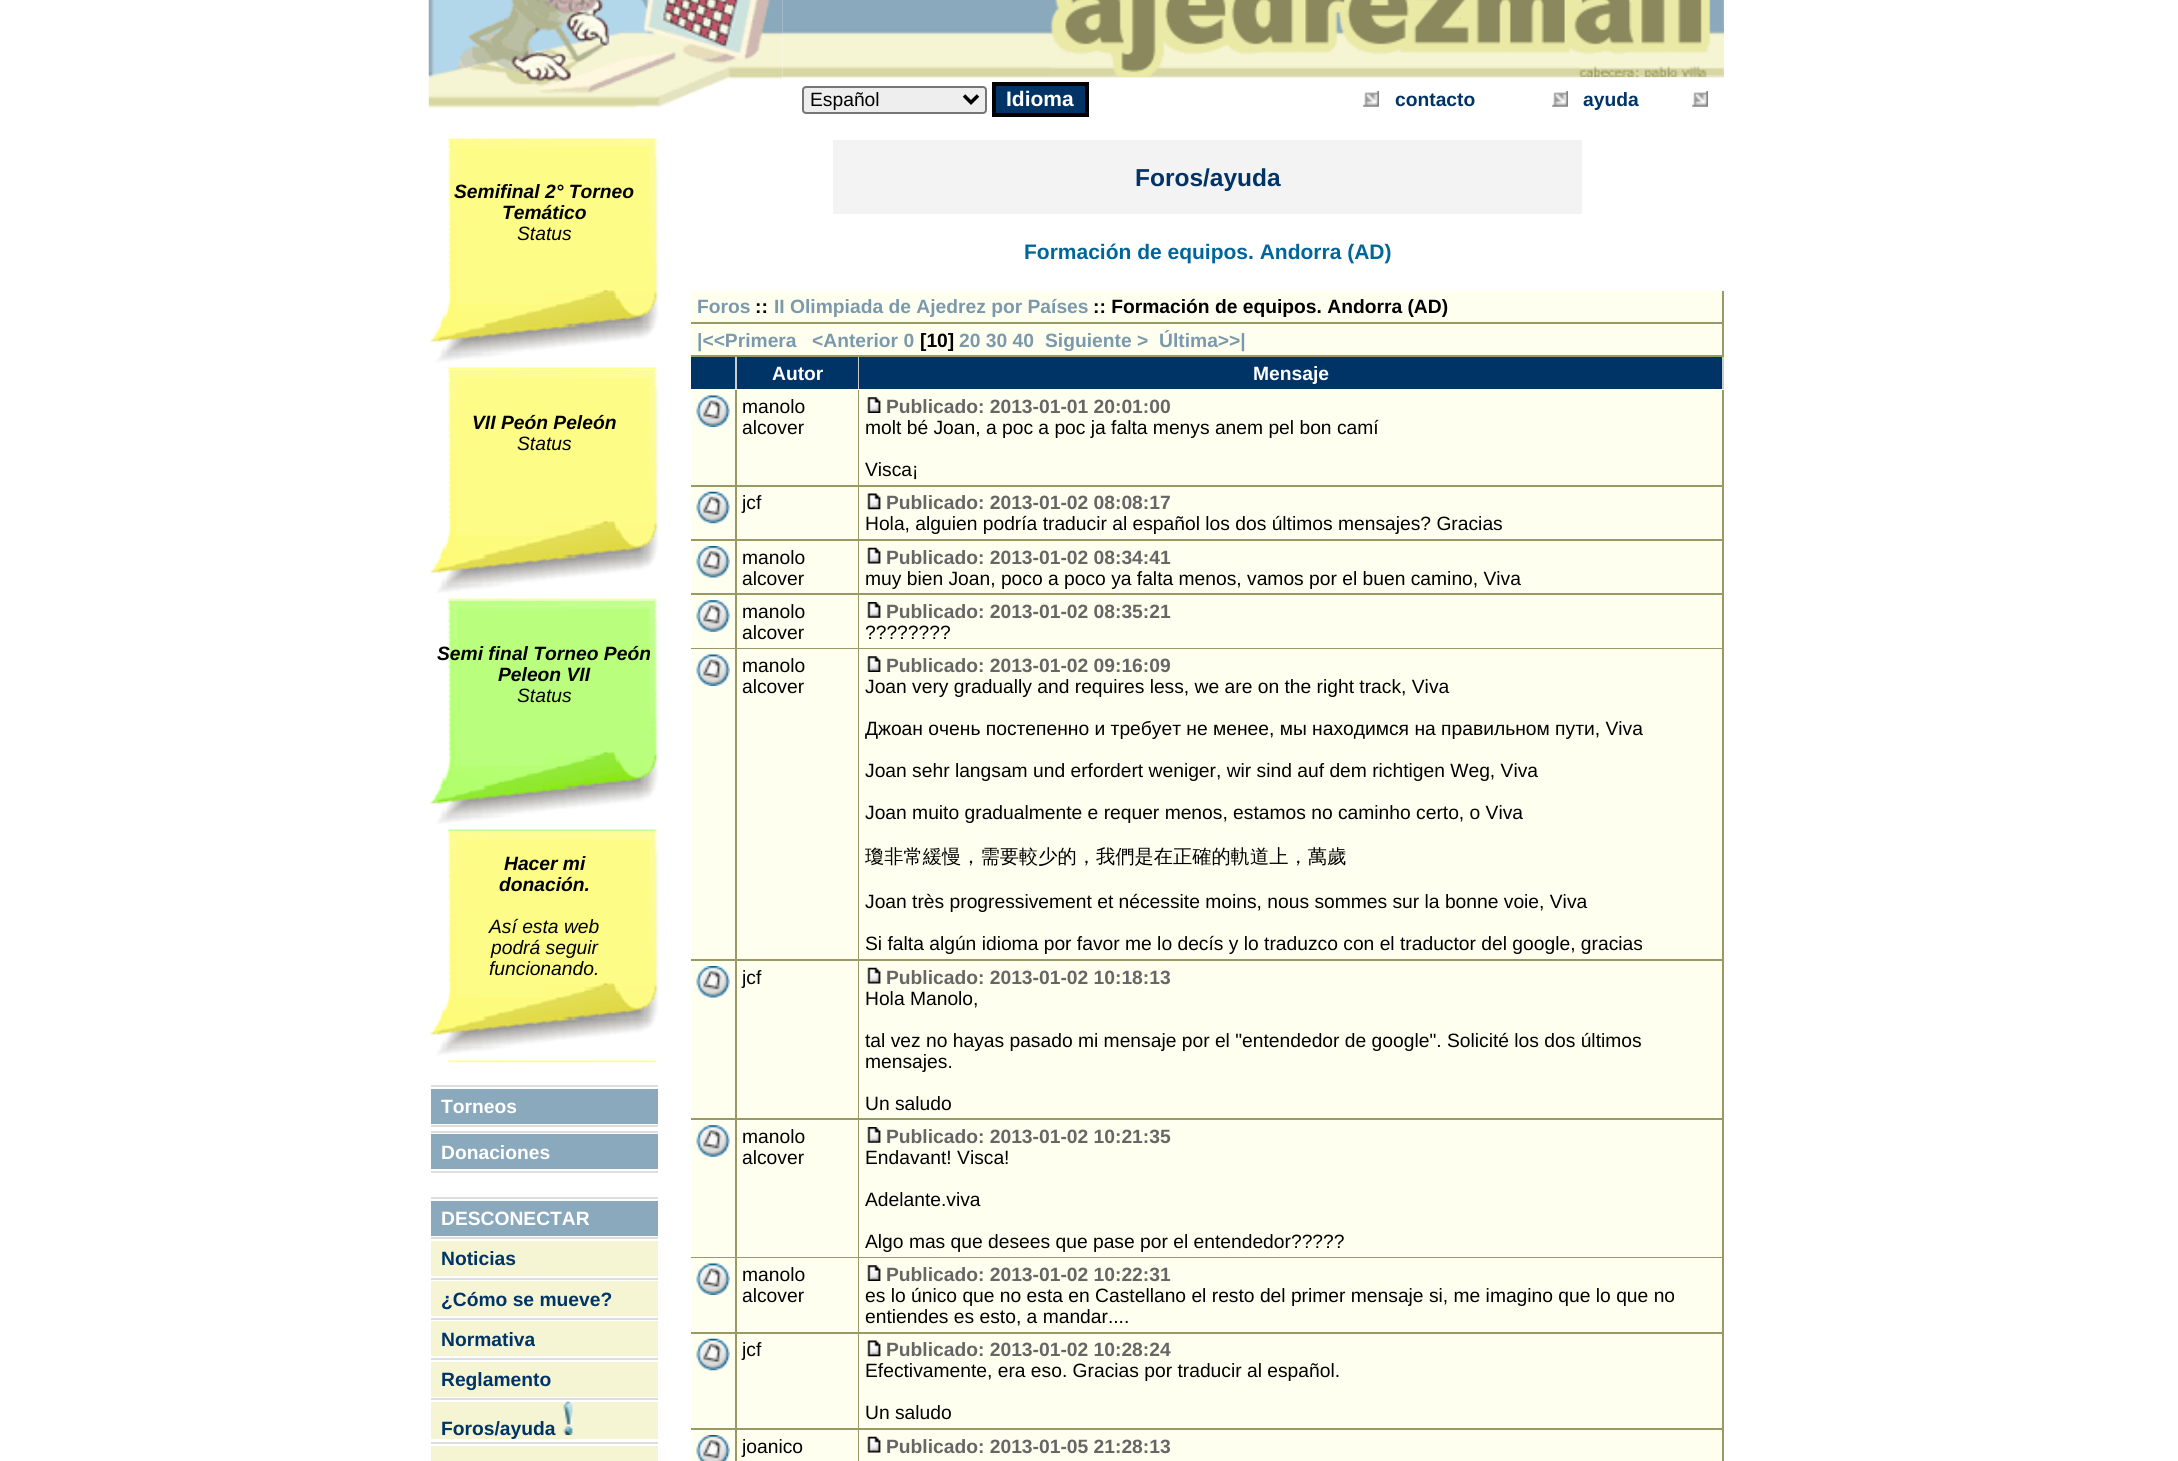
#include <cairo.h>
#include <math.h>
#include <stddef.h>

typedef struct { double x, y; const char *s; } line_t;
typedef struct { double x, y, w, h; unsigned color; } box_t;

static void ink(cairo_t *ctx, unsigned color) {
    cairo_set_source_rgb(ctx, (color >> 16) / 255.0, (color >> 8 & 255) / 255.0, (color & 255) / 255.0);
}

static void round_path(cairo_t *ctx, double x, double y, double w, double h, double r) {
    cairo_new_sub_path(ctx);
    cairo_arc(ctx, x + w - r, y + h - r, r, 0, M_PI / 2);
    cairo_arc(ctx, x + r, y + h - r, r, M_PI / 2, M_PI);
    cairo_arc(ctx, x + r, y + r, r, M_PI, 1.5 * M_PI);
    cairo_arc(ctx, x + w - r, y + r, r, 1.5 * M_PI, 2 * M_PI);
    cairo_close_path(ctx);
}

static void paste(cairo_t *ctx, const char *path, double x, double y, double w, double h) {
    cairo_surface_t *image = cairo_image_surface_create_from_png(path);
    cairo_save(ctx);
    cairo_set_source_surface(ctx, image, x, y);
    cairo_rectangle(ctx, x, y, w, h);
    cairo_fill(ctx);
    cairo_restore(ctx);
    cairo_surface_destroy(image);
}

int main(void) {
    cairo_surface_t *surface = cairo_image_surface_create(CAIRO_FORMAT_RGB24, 2178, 1461);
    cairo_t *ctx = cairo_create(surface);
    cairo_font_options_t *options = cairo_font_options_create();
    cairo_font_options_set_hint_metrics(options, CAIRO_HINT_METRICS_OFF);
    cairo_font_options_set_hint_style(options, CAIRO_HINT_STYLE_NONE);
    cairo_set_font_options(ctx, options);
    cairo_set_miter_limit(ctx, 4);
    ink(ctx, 0xFFFFFF);
    cairo_paint(ctx);
    paste(ctx, "media/2.png", 782, 0, 942, 78);
    paste(ctx, "media/1.png", 428, 0, 355, 109);
    paste(ctx, "media/3.png", 1050, 0, 674, 77);
    ink(ctx, 0xEEEEEE);
    round_path(ctx, 803, 87, 183, 26, 3);
    cairo_fill_preserve(ctx);
    ink(ctx, 0x767676);
    cairo_stroke(ctx);
    cairo_new_path(ctx);
    cairo_move_to(ctx, 964, 95.5);
    cairo_line_to(ctx, 971, 102.5);
    cairo_line_to(ctx, 978, 95.5);
    ink(ctx, 0x000000);
    cairo_set_line_width(ctx, 3.5);
    cairo_stroke(ctx);
    cairo_select_font_face(ctx, "Liberation Sans", CAIRO_FONT_SLANT_NORMAL, CAIRO_FONT_WEIGHT_NORMAL);
    cairo_set_font_size(ctx, 19.25);
    cairo_move_to(ctx, 810, 106);
    cairo_show_text(ctx, "Español");
    ink(ctx, 0x003366);
    cairo_rectangle(ctx, 994, 84, 93, 31);
    cairo_fill_preserve(ctx);
    ink(ctx, 0x000000);
    cairo_set_line_width(ctx, 4);
    cairo_stroke(ctx);
    cairo_select_font_face(ctx, "Liberation Sans", CAIRO_FONT_SLANT_NORMAL, CAIRO_FONT_WEIGHT_BOLD);
    cairo_set_font_size(ctx, 21);
    ink(ctx, 0xFFFFFF);
    cairo_move_to(ctx, 1006, 106);
    cairo_show_text(ctx, "Idioma");
    paste(ctx, "media/4.png", 1363, 91, 16, 16);
    cairo_set_font_size(ctx, 19.25);
    ink(ctx, 0x003366);
    cairo_move_to(ctx, 1395, 106);
    cairo_show_text(ctx, "contacto");
    paste(ctx, "media/5.png", 1552, 91, 16, 16);
    cairo_move_to(ctx, 1583, 106);
    cairo_show_text(ctx, "ayuda");
    paste(ctx, "media/4.png", 1692, 91, 16, 16);
    paste(ctx, "media/6.png", 430, 138, 229, 232);
    cairo_select_font_face(ctx, "Liberation Sans", CAIRO_FONT_SLANT_ITALIC, CAIRO_FONT_WEIGHT_BOLD);
    ink(ctx, 0x000000);
    cairo_move_to(ctx, 454, 198);
    cairo_show_text(ctx, "Semifinal 2° Torneo");
    cairo_move_to(ctx, 502, 219);
    cairo_show_text(ctx, "Temático");
    cairo_select_font_face(ctx, "Liberation Sans", CAIRO_FONT_SLANT_ITALIC, CAIRO_FONT_WEIGHT_NORMAL);
    cairo_move_to(ctx, 517, 240);
    cairo_show_text(ctx, "Status");
    paste(ctx, "media/7.png", 430, 369, 229, 232);
    cairo_select_font_face(ctx, "Liberation Sans", CAIRO_FONT_SLANT_ITALIC, CAIRO_FONT_WEIGHT_BOLD);
    cairo_move_to(ctx, 472, 429);
    cairo_show_text(ctx, "VII Peón Peleón");
    cairo_select_font_face(ctx, "Liberation Sans", CAIRO_FONT_SLANT_ITALIC, CAIRO_FONT_WEIGHT_NORMAL);
    cairo_move_to(ctx, 517, 450);
    cairo_show_text(ctx, "Status");
    paste(ctx, "media/8.png", 430, 600, 229, 232);
    cairo_select_font_face(ctx, "Liberation Sans", CAIRO_FONT_SLANT_ITALIC, CAIRO_FONT_WEIGHT_BOLD);
    cairo_move_to(ctx, 437, 660);
    cairo_show_text(ctx, "Semi final Torneo Peón");
    cairo_move_to(ctx, 498, 681);
    cairo_show_text(ctx, "Peleon VII");
    cairo_select_font_face(ctx, "Liberation Sans", CAIRO_FONT_SLANT_ITALIC, CAIRO_FONT_WEIGHT_NORMAL);
    cairo_move_to(ctx, 517, 702);
    cairo_show_text(ctx, "Status");
    paste(ctx, "media/9.png", 430, 831, 229, 232);
    cairo_select_font_face(ctx, "Liberation Sans", CAIRO_FONT_SLANT_ITALIC, CAIRO_FONT_WEIGHT_BOLD);
    cairo_move_to(ctx, 504, 870);
    cairo_show_text(ctx, "Hacer mi");
    cairo_move_to(ctx, 499, 891);
    cairo_show_text(ctx, "donación.");
    cairo_select_font_face(ctx, "Liberation Sans", CAIRO_FONT_SLANT_ITALIC, CAIRO_FONT_WEIGHT_NORMAL);
    {
        static const line_t items[] = {
            {489, 933, "Así esta web"},
            {491, 954, "podrá seguir"},
            {489, 975, "funcionando."},
        };
        for (size_t i = 0; i < sizeof items / sizeof *items; i++) {
            cairo_move_to(ctx, items[i].x, items[i].y);
            cairo_show_text(ctx, items[i].s);
        }
    }
    ink(ctx, 0xDDDDDD);
    cairo_rectangle(ctx, 431, 1085, 227, 2);
    cairo_fill(ctx);
    ink(ctx, 0x8BA9BC);
    cairo_rectangle(ctx, 431, 1089, 227, 35);
    cairo_fill(ctx);
    cairo_select_font_face(ctx, "Liberation Sans", CAIRO_FONT_SLANT_NORMAL, CAIRO_FONT_WEIGHT_BOLD);
    ink(ctx, 0xFFFFFF);
    cairo_move_to(ctx, 441, 1113);
    cairo_show_text(ctx, "Torneos");
    {
        static const box_t items[] = {
            {431, 1125, 227, 2, 0xDDDDDD},
            {431, 1131, 227, 2, 0xDDDDDD},
            {431, 1134, 227, 35, 0x8BA9BC},
        };
        for (size_t i = 0; i < sizeof items / sizeof *items; i++) {
            ink(ctx, items[i].color);
            cairo_rectangle(ctx, items[i].x, items[i].y, items[i].w, items[i].h);
            cairo_fill(ctx);
        }
    }
    ink(ctx, 0xFFFFFF);
    cairo_move_to(ctx, 441, 1159);
    cairo_show_text(ctx, "Donaciones");
    {
        static const box_t items[] = {
            {431, 1171, 227, 2, 0xDDDDDD},
            {431, 1197, 227, 2, 0xDDDDDD},
            {431, 1201, 227, 35, 0x8BA9BC},
        };
        for (size_t i = 0; i < sizeof items / sizeof *items; i++) {
            ink(ctx, items[i].color);
            cairo_rectangle(ctx, items[i].x, items[i].y, items[i].w, items[i].h);
            cairo_fill(ctx);
        }
    }
    ink(ctx, 0xFFFFFF);
    cairo_move_to(ctx, 441, 1225);
    cairo_show_text(ctx, "DESCONECTAR");
    ink(ctx, 0xDDDDDD);
    cairo_rectangle(ctx, 431, 1237, 227, 2);
    cairo_fill(ctx);
    ink(ctx, 0xF5F4D3);
    cairo_rectangle(ctx, 431, 1241, 227, 35);
    cairo_fill(ctx);
    ink(ctx, 0x003366);
    cairo_move_to(ctx, 441, 1265);
    cairo_show_text(ctx, "Noticias");
    ink(ctx, 0xDDDDDD);
    cairo_rectangle(ctx, 431, 1278, 227, 2);
    cairo_fill(ctx);
    ink(ctx, 0xF5F4D3);
    cairo_rectangle(ctx, 431, 1281, 227, 35);
    cairo_fill(ctx);
    ink(ctx, 0x003366);
    cairo_move_to(ctx, 441, 1306);
    cairo_show_text(ctx, "¿Cómo se mueve?");
    ink(ctx, 0xDDDDDD);
    cairo_rectangle(ctx, 431, 1318, 227, 2);
    cairo_fill(ctx);
    ink(ctx, 0xF5F4D3);
    cairo_rectangle(ctx, 431, 1321, 227, 35);
    cairo_fill(ctx);
    ink(ctx, 0x003366);
    cairo_move_to(ctx, 441, 1346);
    cairo_show_text(ctx, "Normativa");
    ink(ctx, 0xDDDDDD);
    cairo_rectangle(ctx, 431, 1358, 227, 2);
    cairo_fill(ctx);
    ink(ctx, 0xF5F4D3);
    cairo_rectangle(ctx, 431, 1362, 227, 35);
    cairo_fill(ctx);
    ink(ctx, 0x003366);
    cairo_move_to(ctx, 441, 1386);
    cairo_show_text(ctx, "Reglamento");
    ink(ctx, 0xDDDDDD);
    cairo_rectangle(ctx, 431, 1398, 227, 2);
    cairo_fill(ctx);
    ink(ctx, 0xF5F4D3);
    cairo_rectangle(ctx, 431, 1402, 227, 37);
    cairo_fill(ctx);
    ink(ctx, 0x003366);
    cairo_move_to(ctx, 441, 1435);
    cairo_show_text(ctx, "Foros/ayuda");
    paste(ctx, "media/10.png", 563, 1401, 10, 34);
    {
        static const box_t items[] = {
            {431, 1442, 227, 2, 0xDDDDDD},
            {431, 1446, 227, 15, 0xF5F4D3},
            {833, 140, 749, 74, 0xF3F3F3},
        };
        for (size_t i = 0; i < sizeof items / sizeof *items; i++) {
            ink(ctx, items[i].color);
            cairo_rectangle(ctx, items[i].x, items[i].y, items[i].w, items[i].h);
            cairo_fill(ctx);
        }
    }
    cairo_set_font_size(ctx, 24.5);
    ink(ctx, 0x003366);
    cairo_move_to(ctx, 1135, 186);
    cairo_show_text(ctx, "Foros/ayuda");
    cairo_set_font_size(ctx, 21);
    ink(ctx, 0x006699);
    cairo_move_to(ctx, 1024, 259);
    cairo_show_text(ctx, "Formación de equipos. Andorra (AD)");
    {
        static const box_t items[] = {
            {691, 291, 1031, 31, 0xFFFFEF},
            {1722, 291, 2, 66, 0x999966},
            {691, 322, 1033, 2, 0x999966},
        };
        for (size_t i = 0; i < sizeof items / sizeof *items; i++) {
            ink(ctx, items[i].color);
            cairo_rectangle(ctx, items[i].x, items[i].y, items[i].w, items[i].h);
            cairo_fill(ctx);
        }
    }
    cairo_set_font_size(ctx, 19.25);
    ink(ctx, 0x7B99AC);
    cairo_move_to(ctx, 697, 313);
    cairo_show_text(ctx, "Foros");
    ink(ctx, 0x000000);
    cairo_move_to(ctx, 755, 313);
    cairo_show_text(ctx, "::");
    ink(ctx, 0x7B99AC);
    cairo_move_to(ctx, 774, 313);
    cairo_show_text(ctx, "II Olimpiada de Ajedrez por Países");
    ink(ctx, 0x000000);
    cairo_move_to(ctx, 1093, 313);
    cairo_show_text(ctx, ":: Formación de equipos. Andorra (AD)");
    ink(ctx, 0xFFFFEF);
    cairo_rectangle(ctx, 691, 324, 1031, 31);
    cairo_fill(ctx);
    ink(ctx, 0x999966);
    cairo_rectangle(ctx, 691, 355, 1033, 2);
    cairo_fill(ctx);
    ink(ctx, 0x7B99AC);
    cairo_move_to(ctx, 697, 347);
    cairo_show_text(ctx, "|<<Primera");
    cairo_move_to(ctx, 812, 347);
    cairo_show_text(ctx, "<Anterior 0");
    ink(ctx, 0x000000);
    cairo_move_to(ctx, 920, 347);
    cairo_show_text(ctx, "[10]");
    ink(ctx, 0x7B99AC);
    {
        static const line_t items[] = {
            {959, 347, "20 30 40"},
            {1045, 347, "Siguiente >"},
            {1159, 347, "Última>>|"},
        };
        for (size_t i = 0; i < sizeof items / sizeof *items; i++) {
            cairo_move_to(ctx, items[i].x, items[i].y);
            cairo_show_text(ctx, items[i].s);
        }
    }
    {
        static const box_t items[] = {
            {691, 357, 44, 32, 0x003366},
            {735, 357, 2, 33, 0xCCCCCC},
            {735, 389, 2, 1, 0xFFFFFF},
            {737, 357, 121, 32, 0x003366},
            {858, 357, 1, 33, 0xCCCCCC},
            {858, 389, 1, 1, 0xFFFFFF},
        };
        for (size_t i = 0; i < sizeof items / sizeof *items; i++) {
            ink(ctx, items[i].color);
            cairo_rectangle(ctx, items[i].x, items[i].y, items[i].w, items[i].h);
            cairo_fill(ctx);
        }
    }
    cairo_move_to(ctx, 772, 380);
    cairo_show_text(ctx, "Autor");
    {
        static const box_t items[] = {
            {859, 357, 863, 32, 0x003366},
            {1722, 357, 2, 33, 0xCCCCCC},
            {1722, 389, 2, 1, 0xFFFFFF},
        };
        for (size_t i = 0; i < sizeof items / sizeof *items; i++) {
            ink(ctx, items[i].color);
            cairo_rectangle(ctx, items[i].x, items[i].y, items[i].w, items[i].h);
            cairo_fill(ctx);
        }
    }
    cairo_move_to(ctx, 1253, 380);
    cairo_show_text(ctx, "Mensaje");
    {
        static const box_t items[] = {
            {691, 390, 44, 95, 0xFFFFEF},
            {735, 390, 2, 1071, 0x999966},
            {691, 485, 46, 2, 0x999966},
        };
        for (size_t i = 0; i < sizeof items / sizeof *items; i++) {
            ink(ctx, items[i].color);
            cairo_rectangle(ctx, items[i].x, items[i].y, items[i].w, items[i].h);
            cairo_fill(ctx);
        }
    }
    paste(ctx, "media/11.png", 696, 395, 34, 32);
    {
        static const box_t items[] = {
            {737, 390, 121, 95, 0xFFFFEF},
            {858, 390, 1, 1071, 0x999966},
            {737, 485, 122, 2, 0x999966},
        };
        for (size_t i = 0; i < sizeof items / sizeof *items; i++) {
            ink(ctx, items[i].color);
            cairo_rectangle(ctx, items[i].x, items[i].y, items[i].w, items[i].h);
            cairo_fill(ctx);
        }
    }
    cairo_select_font_face(ctx, "Liberation Sans", CAIRO_FONT_SLANT_NORMAL, CAIRO_FONT_WEIGHT_NORMAL);
    ink(ctx, 0x000000);
    cairo_move_to(ctx, 742, 413);
    cairo_show_text(ctx, "manolo");
    cairo_move_to(ctx, 742, 434);
    cairo_show_text(ctx, "alcover");
    {
        static const box_t items[] = {
            {859, 390, 863, 95, 0xFFFFEF},
            {1722, 390, 2, 1071, 0x999966},
            {859, 485, 865, 2, 0x999966},
        };
        for (size_t i = 0; i < sizeof items / sizeof *items; i++) {
            ink(ctx, items[i].color);
            cairo_rectangle(ctx, items[i].x, items[i].y, items[i].w, items[i].h);
            cairo_fill(ctx);
        }
    }
    paste(ctx, "media/12.png", 867, 397, 14, 16);
    cairo_select_font_face(ctx, "Liberation Sans", CAIRO_FONT_SLANT_NORMAL, CAIRO_FONT_WEIGHT_BOLD);
    ink(ctx, 0x666666);
    cairo_move_to(ctx, 886, 413);
    cairo_show_text(ctx, "Publicado: 2013-01-01 20:01:00");
    cairo_select_font_face(ctx, "Liberation Sans", CAIRO_FONT_SLANT_NORMAL, CAIRO_FONT_WEIGHT_NORMAL);
    ink(ctx, 0x000000);
    cairo_move_to(ctx, 865, 434);
    cairo_show_text(ctx, "molt bé Joan, a poc a poc ja falta menys anem pel bon camí");
    cairo_move_to(ctx, 865, 476);
    cairo_show_text(ctx, "Visca¡");
    ink(ctx, 0xFFFFEF);
    cairo_rectangle(ctx, 691, 487, 44, 52);
    cairo_fill(ctx);
    ink(ctx, 0x999966);
    cairo_rectangle(ctx, 691, 539, 1033, 2);
    cairo_fill(ctx);
    paste(ctx, "media/13.png", 696, 491, 34, 33);
    ink(ctx, 0xFFFFEF);
    cairo_rectangle(ctx, 737, 487, 121, 52);
    cairo_fill(ctx);
    ink(ctx, 0x000000);
    cairo_move_to(ctx, 742, 509);
    cairo_show_text(ctx, "jcf");
    ink(ctx, 0xFFFFEF);
    cairo_rectangle(ctx, 859, 487, 863, 52);
    cairo_fill(ctx);
    paste(ctx, "media/14.png", 867, 493, 14, 17);
    cairo_select_font_face(ctx, "Liberation Sans", CAIRO_FONT_SLANT_NORMAL, CAIRO_FONT_WEIGHT_BOLD);
    ink(ctx, 0x666666);
    cairo_move_to(ctx, 886, 509);
    cairo_show_text(ctx, "Publicado: 2013-01-02 08:08:17");
    cairo_select_font_face(ctx, "Liberation Sans", CAIRO_FONT_SLANT_NORMAL, CAIRO_FONT_WEIGHT_NORMAL);
    ink(ctx, 0x000000);
    cairo_move_to(ctx, 865, 530);
    cairo_show_text(ctx, "Hola, alguien podría traducir al español los dos últimos mensajes? Gracias");
    ink(ctx, 0xFFFFEF);
    cairo_rectangle(ctx, 691, 541, 44, 52);
    cairo_fill(ctx);
    ink(ctx, 0x999966);
    cairo_rectangle(ctx, 691, 593, 1033, 2);
    cairo_fill(ctx);
    paste(ctx, "media/15.png", 696, 546, 34, 32);
    ink(ctx, 0xFFFFEF);
    cairo_rectangle(ctx, 737, 541, 121, 52);
    cairo_fill(ctx);
    ink(ctx, 0x000000);
    cairo_move_to(ctx, 742, 564);
    cairo_show_text(ctx, "manolo");
    cairo_move_to(ctx, 742, 585);
    cairo_show_text(ctx, "alcover");
    ink(ctx, 0xFFFFEF);
    cairo_rectangle(ctx, 859, 541, 863, 52);
    cairo_fill(ctx);
    paste(ctx, "media/16.png", 867, 547, 14, 17);
    cairo_select_font_face(ctx, "Liberation Sans", CAIRO_FONT_SLANT_NORMAL, CAIRO_FONT_WEIGHT_BOLD);
    ink(ctx, 0x666666);
    cairo_move_to(ctx, 886, 564);
    cairo_show_text(ctx, "Publicado: 2013-01-02 08:34:41");
    cairo_select_font_face(ctx, "Liberation Sans", CAIRO_FONT_SLANT_NORMAL, CAIRO_FONT_WEIGHT_NORMAL);
    ink(ctx, 0x000000);
    cairo_move_to(ctx, 865, 585);
    cairo_show_text(ctx, "muy bien Joan, poco a poco ya falta menos, vamos por el buen camino, Viva");
    ink(ctx, 0xFFFFEF);
    cairo_rectangle(ctx, 691, 595, 44, 53);
    cairo_fill(ctx);
    ink(ctx, 0x999966);
    cairo_rectangle(ctx, 691, 648, 1033, 1);
    cairo_fill(ctx);
    paste(ctx, "media/17.png", 696, 600, 34, 32);
    ink(ctx, 0xFFFFEF);
    cairo_rectangle(ctx, 737, 595, 121, 53);
    cairo_fill(ctx);
    ink(ctx, 0x000000);
    cairo_move_to(ctx, 742, 618);
    cairo_show_text(ctx, "manolo");
    cairo_move_to(ctx, 742, 639);
    cairo_show_text(ctx, "alcover");
    ink(ctx, 0xFFFFEF);
    cairo_rectangle(ctx, 859, 595, 863, 53);
    cairo_fill(ctx);
    paste(ctx, "media/18.png", 867, 602, 14, 16);
    cairo_select_font_face(ctx, "Liberation Sans", CAIRO_FONT_SLANT_NORMAL, CAIRO_FONT_WEIGHT_BOLD);
    ink(ctx, 0x666666);
    cairo_move_to(ctx, 886, 618);
    cairo_show_text(ctx, "Publicado: 2013-01-02 08:35:21");
    cairo_select_font_face(ctx, "Liberation Sans", CAIRO_FONT_SLANT_NORMAL, CAIRO_FONT_WEIGHT_NORMAL);
    ink(ctx, 0x000000);
    cairo_move_to(ctx, 865, 639);
    cairo_show_text(ctx, "?\077?\077?\077?\077");
    ink(ctx, 0xFFFFEF);
    cairo_rectangle(ctx, 691, 649, 44, 310);
    cairo_fill(ctx);
    ink(ctx, 0x999966);
    cairo_rectangle(ctx, 691, 959, 1033, 2);
    cairo_fill(ctx);
    paste(ctx, "media/11.png", 696, 654, 34, 32);
    ink(ctx, 0xFFFFEF);
    cairo_rectangle(ctx, 737, 649, 121, 310);
    cairo_fill(ctx);
    ink(ctx, 0x000000);
    cairo_move_to(ctx, 742, 672);
    cairo_show_text(ctx, "manolo");
    cairo_move_to(ctx, 742, 693);
    cairo_show_text(ctx, "alcover");
    ink(ctx, 0xFFFFEF);
    cairo_rectangle(ctx, 859, 649, 863, 310);
    cairo_fill(ctx);
    paste(ctx, "media/12.png", 867, 656, 14, 16);
    cairo_select_font_face(ctx, "Liberation Sans", CAIRO_FONT_SLANT_NORMAL, CAIRO_FONT_WEIGHT_BOLD);
    ink(ctx, 0x666666);
    cairo_move_to(ctx, 886, 672);
    cairo_show_text(ctx, "Publicado: 2013-01-02 09:16:09");
    cairo_select_font_face(ctx, "Liberation Sans", CAIRO_FONT_SLANT_NORMAL, CAIRO_FONT_WEIGHT_NORMAL);
    ink(ctx, 0x000000);
    {
        static const line_t items[] = {
            {865, 693, "Joan very gradually and requires less, we are on the right track, Viva"},
            {865, 735, "Джоан очень постепенно и требует не менее, мы находимся на правильном пути, Viva"},
            {865, 777, "Joan sehr langsam und erfordert weniger, wir sind auf dem richtigen Weg, Viva"},
            {865, 819, "Joan muito gradualmente e requer menos, estamos no caminho certo, o Viva"},
        };
        for (size_t i = 0; i < sizeof items / sizeof *items; i++) {
            cairo_move_to(ctx, items[i].x, items[i].y);
            cairo_show_text(ctx, items[i].s);
        }
    }
    cairo_select_font_face(ctx, "WenQuanYi Zen Hei Medium", CAIRO_FONT_SLANT_NORMAL, CAIRO_FONT_WEIGHT_NORMAL);
    cairo_move_to(ctx, 865, 863);
    cairo_show_text(ctx, "瓊非常緩慢，需要較少的，我們是在正確的軌道上，萬歲");
    cairo_select_font_face(ctx, "Liberation Sans", CAIRO_FONT_SLANT_NORMAL, CAIRO_FONT_WEIGHT_NORMAL);
    cairo_move_to(ctx, 865, 908);
    cairo_show_text(ctx, "Joan très progressivement et nécessite moins, nous sommes sur la bonne voie, Viva");
    cairo_move_to(ctx, 865, 950);
    cairo_show_text(ctx, "Si falta algún idioma por favor me lo decís y lo traduzco con el traductor del google, gracias");
    ink(ctx, 0xFFFFEF);
    cairo_rectangle(ctx, 691, 961, 44, 157);
    cairo_fill(ctx);
    ink(ctx, 0x999966);
    cairo_rectangle(ctx, 691, 1118, 1033, 2);
    cairo_fill(ctx);
    paste(ctx, "media/15.png", 696, 966, 34, 32);
    ink(ctx, 0xFFFFEF);
    cairo_rectangle(ctx, 737, 961, 121, 157);
    cairo_fill(ctx);
    ink(ctx, 0x000000);
    cairo_move_to(ctx, 742, 984);
    cairo_show_text(ctx, "jcf");
    ink(ctx, 0xFFFFEF);
    cairo_rectangle(ctx, 859, 961, 863, 157);
    cairo_fill(ctx);
    paste(ctx, "media/16.png", 867, 967, 14, 17);
    cairo_select_font_face(ctx, "Liberation Sans", CAIRO_FONT_SLANT_NORMAL, CAIRO_FONT_WEIGHT_BOLD);
    ink(ctx, 0x666666);
    cairo_move_to(ctx, 886, 984);
    cairo_show_text(ctx, "Publicado: 2013-01-02 10:18:13");
    cairo_select_font_face(ctx, "Liberation Sans", CAIRO_FONT_SLANT_NORMAL, CAIRO_FONT_WEIGHT_NORMAL);
    ink(ctx, 0x000000);
    {
        static const line_t items[] = {
            {865, 1005, "Hola Manolo,"},
            {865, 1047, "tal vez no hayas pasado mi mensaje por el \"entendedor de google\". Solicité los dos últimos"},
            {865, 1068, "mensajes."},
            {865, 1110, "Un saludo"},
        };
        for (size_t i = 0; i < sizeof items / sizeof *items; i++) {
            cairo_move_to(ctx, items[i].x, items[i].y);
            cairo_show_text(ctx, items[i].s);
        }
    }
    ink(ctx, 0xFFFFEF);
    cairo_rectangle(ctx, 691, 1120, 44, 137);
    cairo_fill(ctx);
    ink(ctx, 0x999966);
    cairo_rectangle(ctx, 691, 1257, 1033, 1);
    cairo_fill(ctx);
    paste(ctx, "media/17.png", 696, 1125, 34, 32);
    ink(ctx, 0xFFFFEF);
    cairo_rectangle(ctx, 737, 1120, 121, 137);
    cairo_fill(ctx);
    ink(ctx, 0x000000);
    cairo_move_to(ctx, 742, 1143);
    cairo_show_text(ctx, "manolo");
    cairo_move_to(ctx, 742, 1164);
    cairo_show_text(ctx, "alcover");
    ink(ctx, 0xFFFFEF);
    cairo_rectangle(ctx, 859, 1120, 863, 137);
    cairo_fill(ctx);
    paste(ctx, "media/18.png", 867, 1127, 14, 16);
    cairo_select_font_face(ctx, "Liberation Sans", CAIRO_FONT_SLANT_NORMAL, CAIRO_FONT_WEIGHT_BOLD);
    ink(ctx, 0x666666);
    cairo_move_to(ctx, 886, 1143);
    cairo_show_text(ctx, "Publicado: 2013-01-02 10:21:35");
    cairo_select_font_face(ctx, "Liberation Sans", CAIRO_FONT_SLANT_NORMAL, CAIRO_FONT_WEIGHT_NORMAL);
    ink(ctx, 0x000000);
    {
        static const line_t items[] = {
            {865, 1164, "Endavant! Visca!"},
            {865, 1206, "Adelante.viva"},
            {865, 1248, "Algo mas que desees que pase por el entendedor?\077?\077?"},
        };
        for (size_t i = 0; i < sizeof items / sizeof *items; i++) {
            cairo_move_to(ctx, items[i].x, items[i].y);
            cairo_show_text(ctx, items[i].s);
        }
    }
    ink(ctx, 0xFFFFEF);
    cairo_rectangle(ctx, 691, 1258, 44, 74);
    cairo_fill(ctx);
    ink(ctx, 0x999966);
    cairo_rectangle(ctx, 691, 1332, 1033, 2);
    cairo_fill(ctx);
    paste(ctx, "media/11.png", 696, 1263, 34, 32);
    ink(ctx, 0xFFFFEF);
    cairo_rectangle(ctx, 737, 1258, 121, 74);
    cairo_fill(ctx);
    ink(ctx, 0x000000);
    cairo_move_to(ctx, 742, 1281);
    cairo_show_text(ctx, "manolo");
    cairo_move_to(ctx, 742, 1302);
    cairo_show_text(ctx, "alcover");
    ink(ctx, 0xFFFFEF);
    cairo_rectangle(ctx, 859, 1258, 863, 74);
    cairo_fill(ctx);
    paste(ctx, "media/12.png", 867, 1265, 14, 16);
    cairo_select_font_face(ctx, "Liberation Sans", CAIRO_FONT_SLANT_NORMAL, CAIRO_FONT_WEIGHT_BOLD);
    ink(ctx, 0x666666);
    cairo_move_to(ctx, 886, 1281);
    cairo_show_text(ctx, "Publicado: 2013-01-02 10:22:31");
    cairo_select_font_face(ctx, "Liberation Sans", CAIRO_FONT_SLANT_NORMAL, CAIRO_FONT_WEIGHT_NORMAL);
    ink(ctx, 0x000000);
    cairo_move_to(ctx, 865, 1302);
    cairo_show_text(ctx, "es lo único que no esta en Castellano el resto del primer mensaje si, me imagino que lo que no");
    cairo_move_to(ctx, 865, 1323);
    cairo_show_text(ctx, "entiendes es esto, a mandar....");
    ink(ctx, 0xFFFFEF);
    cairo_rectangle(ctx, 691, 1334, 44, 94);
    cairo_fill(ctx);
    ink(ctx, 0x999966);
    cairo_rectangle(ctx, 691, 1428, 1033, 2);
    cairo_fill(ctx);
    paste(ctx, "media/13.png", 696, 1338, 34, 33);
    ink(ctx, 0xFFFFEF);
    cairo_rectangle(ctx, 737, 1334, 121, 94);
    cairo_fill(ctx);
    ink(ctx, 0x000000);
    cairo_move_to(ctx, 742, 1356);
    cairo_show_text(ctx, "jcf");
    ink(ctx, 0xFFFFEF);
    cairo_rectangle(ctx, 859, 1334, 863, 94);
    cairo_fill(ctx);
    paste(ctx, "media/14.png", 867, 1340, 14, 17);
    cairo_select_font_face(ctx, "Liberation Sans", CAIRO_FONT_SLANT_NORMAL, CAIRO_FONT_WEIGHT_BOLD);
    ink(ctx, 0x666666);
    cairo_move_to(ctx, 886, 1356);
    cairo_show_text(ctx, "Publicado: 2013-01-02 10:28:24");
    cairo_select_font_face(ctx, "Liberation Sans", CAIRO_FONT_SLANT_NORMAL, CAIRO_FONT_WEIGHT_NORMAL);
    ink(ctx, 0x000000);
    cairo_move_to(ctx, 865, 1377);
    cairo_show_text(ctx, "Efectivamente, era eso. Gracias por traducir al español.");
    cairo_move_to(ctx, 865, 1419);
    cairo_show_text(ctx, "Un saludo");
    ink(ctx, 0xFFFFEF);
    cairo_rectangle(ctx, 691, 1430, 44, 31);
    cairo_fill(ctx);
    paste(ctx, "media/19.png", 696, 1435, 34, 26);
    cairo_rectangle(ctx, 737, 1430, 121, 31);
    cairo_fill(ctx);
    ink(ctx, 0x000000);
    cairo_move_to(ctx, 742, 1453);
    cairo_show_text(ctx, "joanico");
    ink(ctx, 0xFFFFEF);
    cairo_rectangle(ctx, 859, 1430, 863, 31);
    cairo_fill(ctx);
    paste(ctx, "media/16.png", 867, 1436, 14, 17);
    cairo_select_font_face(ctx, "Liberation Sans", CAIRO_FONT_SLANT_NORMAL, CAIRO_FONT_WEIGHT_BOLD);
    ink(ctx, 0x666666);
    cairo_move_to(ctx, 886, 1453);
    cairo_show_text(ctx, "Publicado: 2013-01-05 21:28:13");
    cairo_surface_write_to_png(surface, "image.png");
    cairo_font_options_destroy(options);
    cairo_destroy(ctx);
    cairo_surface_destroy(surface);
    return 0;
}
